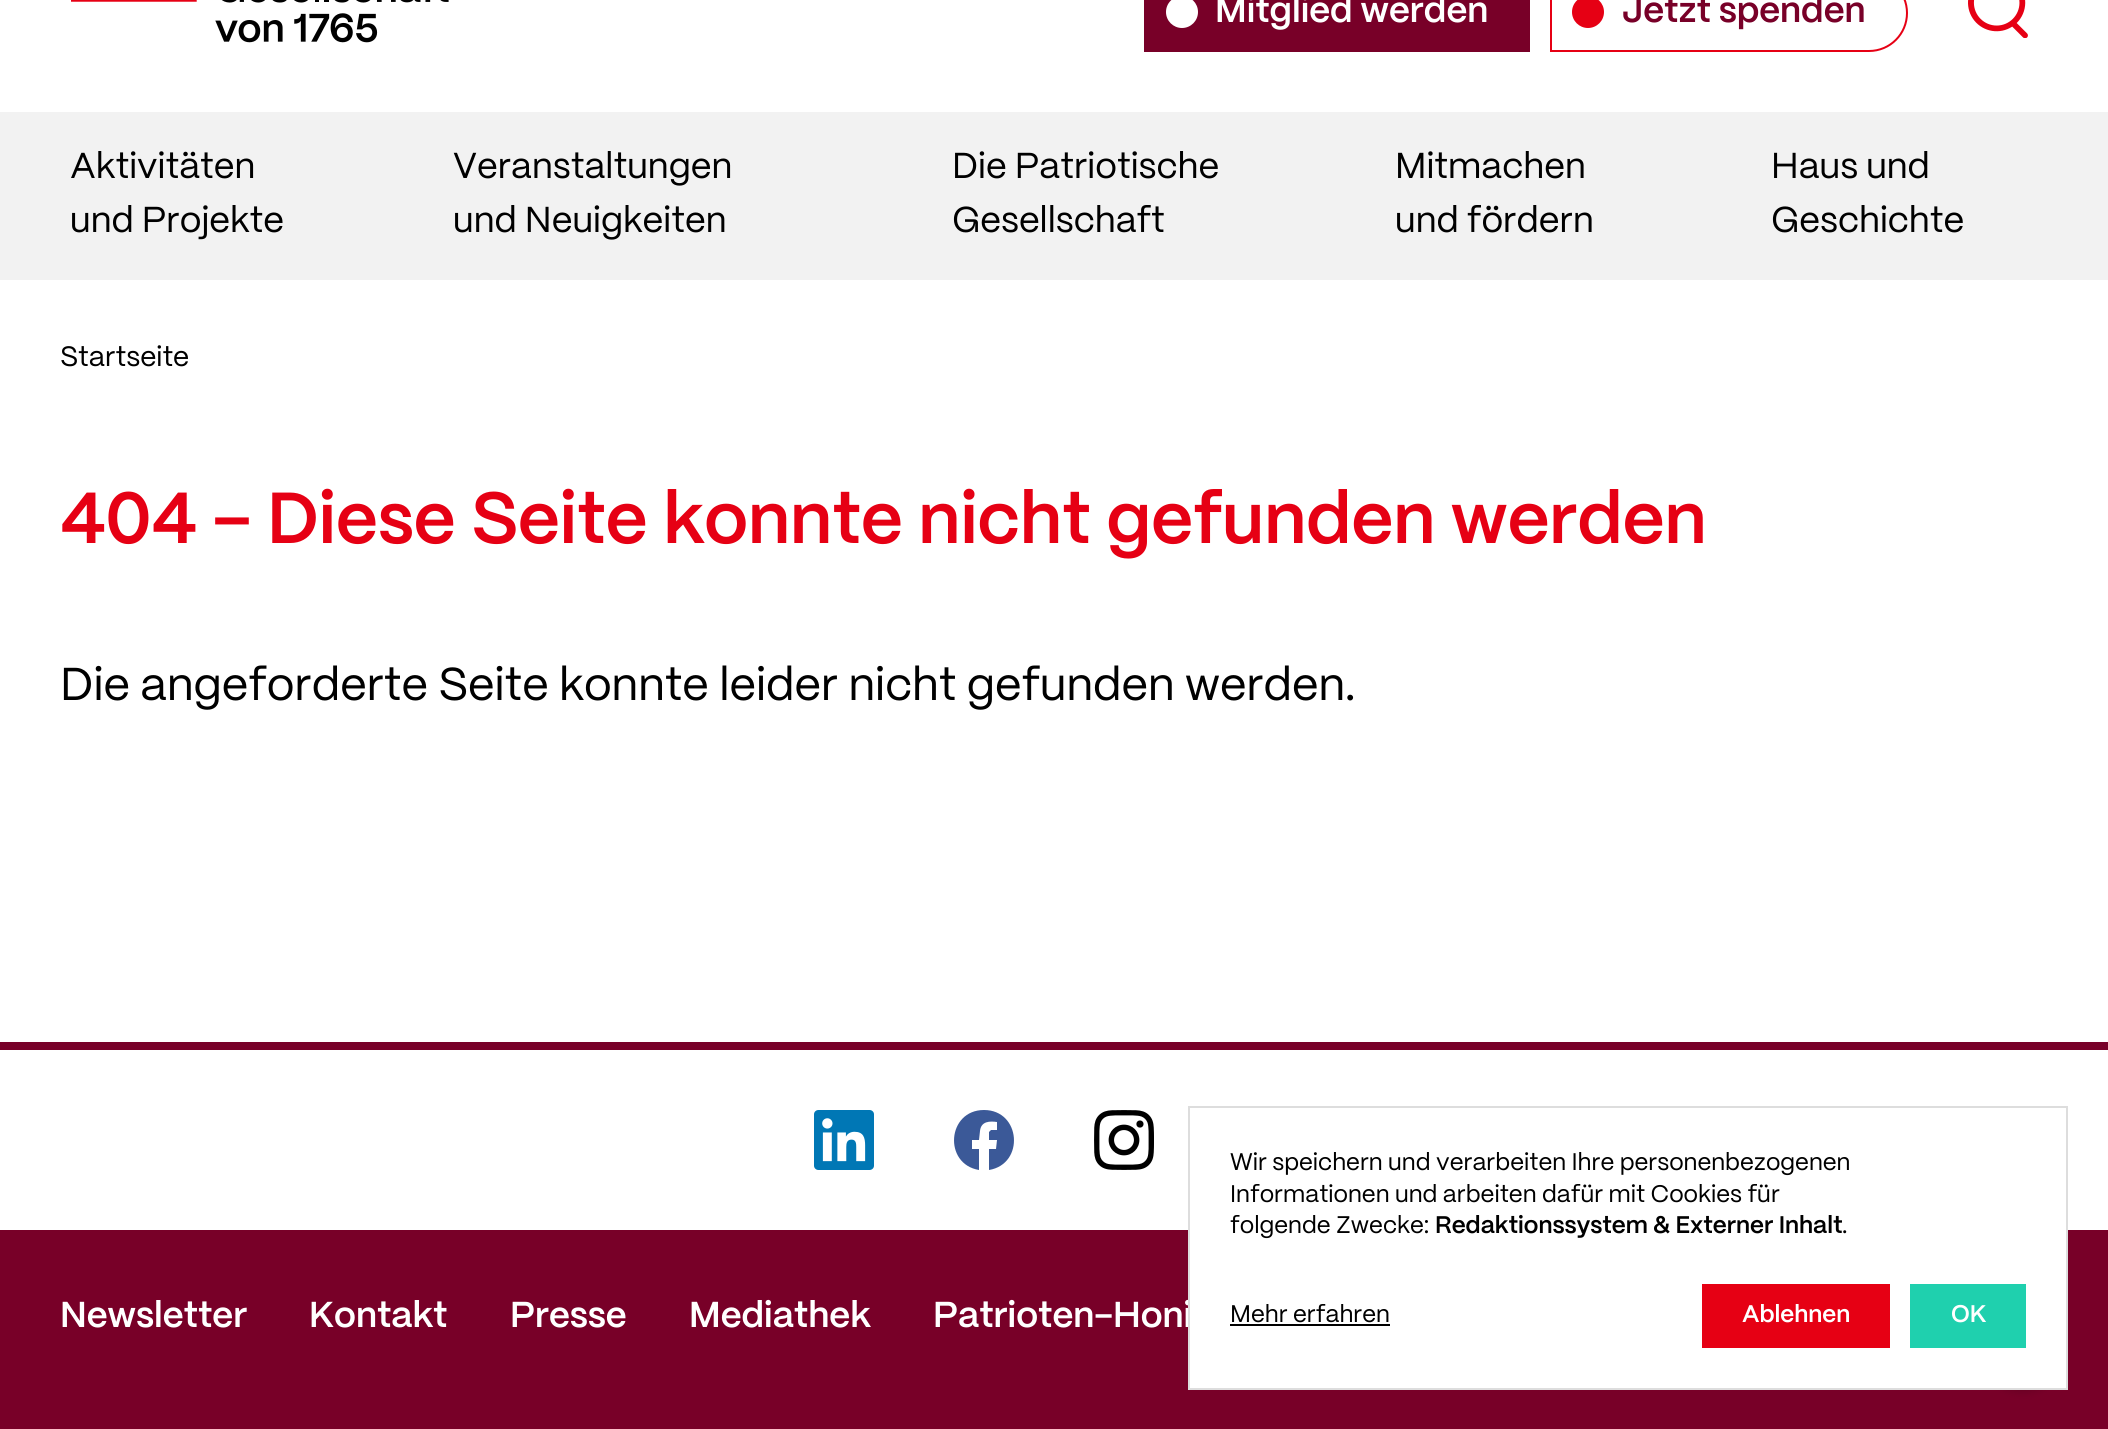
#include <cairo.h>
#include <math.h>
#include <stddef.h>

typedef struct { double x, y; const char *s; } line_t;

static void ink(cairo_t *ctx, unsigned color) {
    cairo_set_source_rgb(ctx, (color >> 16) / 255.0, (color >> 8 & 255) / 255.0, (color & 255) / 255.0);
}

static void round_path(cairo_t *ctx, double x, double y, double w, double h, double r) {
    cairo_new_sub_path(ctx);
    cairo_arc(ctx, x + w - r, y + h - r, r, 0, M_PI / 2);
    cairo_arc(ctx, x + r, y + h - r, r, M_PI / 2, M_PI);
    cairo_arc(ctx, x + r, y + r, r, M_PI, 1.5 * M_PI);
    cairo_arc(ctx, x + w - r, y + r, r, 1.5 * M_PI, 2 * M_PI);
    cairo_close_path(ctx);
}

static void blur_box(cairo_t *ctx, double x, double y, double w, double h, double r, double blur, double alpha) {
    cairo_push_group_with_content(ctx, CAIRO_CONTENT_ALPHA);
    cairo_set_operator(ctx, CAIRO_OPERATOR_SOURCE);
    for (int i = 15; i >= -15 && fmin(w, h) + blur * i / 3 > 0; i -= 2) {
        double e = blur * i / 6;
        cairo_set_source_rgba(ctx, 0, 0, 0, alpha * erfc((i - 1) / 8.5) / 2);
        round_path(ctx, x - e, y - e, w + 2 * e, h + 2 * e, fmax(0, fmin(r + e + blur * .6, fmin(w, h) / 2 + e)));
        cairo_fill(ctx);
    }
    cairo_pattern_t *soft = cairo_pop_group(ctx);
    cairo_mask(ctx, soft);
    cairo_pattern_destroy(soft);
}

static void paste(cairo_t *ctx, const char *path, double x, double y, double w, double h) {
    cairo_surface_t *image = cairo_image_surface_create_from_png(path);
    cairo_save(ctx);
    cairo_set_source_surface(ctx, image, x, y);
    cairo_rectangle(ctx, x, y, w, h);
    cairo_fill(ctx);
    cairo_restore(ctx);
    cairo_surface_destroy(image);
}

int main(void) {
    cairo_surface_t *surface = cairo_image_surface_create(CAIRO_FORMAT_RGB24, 2108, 1429);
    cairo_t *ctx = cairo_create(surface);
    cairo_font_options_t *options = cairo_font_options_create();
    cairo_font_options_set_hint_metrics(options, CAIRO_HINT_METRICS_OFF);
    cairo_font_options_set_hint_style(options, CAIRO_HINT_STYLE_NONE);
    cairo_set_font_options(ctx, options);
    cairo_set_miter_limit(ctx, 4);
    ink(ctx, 0xFFFFFF);
    cairo_paint(ctx);
    paste(ctx, "media/1.png", 71, 0, 378, 43);
    ink(ctx, 0x780028);
    cairo_rectangle(ctx, 1144, 0, 386, 52);
    cairo_fill(ctx);
    ink(ctx, 0xFFFFFF);
    cairo_arc(ctx, 1182, 12, 16, 0, 2 * M_PI);
    cairo_fill(ctx);
    cairo_select_font_face(ctx, "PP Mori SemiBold", CAIRO_FONT_SLANT_NORMAL, CAIRO_FONT_WEIGHT_NORMAL);
    cairo_set_font_size(ctx, 36);
    cairo_move_to(ctx, 1215, 22);
    cairo_show_text(ctx, "Mitglied werden");
    cairo_new_path(ctx);
    cairo_move_to(ctx, 1551, -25);
    cairo_line_to(ctx, 1869, -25);
    cairo_curve_to(ctx, 1890, -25, 1907, -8, 1907, 13);
    cairo_curve_to(ctx, 1907, 34, 1890, 51, 1869, 51);
    cairo_line_to(ctx, 1551, 51);
    cairo_close_path(ctx);
    ink(ctx, 0xE60014);
    cairo_stroke(ctx);
    cairo_arc(ctx, 1588, 12, 16, 0, 2 * M_PI);
    cairo_fill(ctx);
    ink(ctx, 0x780028);
    cairo_move_to(ctx, 1622, 22);
    cairo_show_text(ctx, "Jetzt spenden");
    paste(ctx, "media/2.png", 1968, 0, 60, 38);
    ink(ctx, 0xF2F2F2);
    cairo_rectangle(ctx, 0, 112, 2108, 168);
    cairo_fill(ctx);
    cairo_select_font_face(ctx, "PP Mori", CAIRO_FONT_SLANT_NORMAL, CAIRO_FONT_WEIGHT_NORMAL);
    ink(ctx, 0x000000);
    {
        static const line_t items[] = {
            {70, 178, "Aktivitäten"},
            {70, 232, "und Projekte"},
            {453, 178, "Veranstaltungen"},
            {453, 232, "und Neuigkeiten"},
            {952, 178, "Die Patriotische"},
            {952, 232, "Gesellschaft"},
            {1395, 178, "Mitmachen"},
            {1395, 232, "und fördern"},
            {1771, 178, "Haus und"},
            {1771, 232, "Geschichte"},
        };
        for (size_t i = 0; i < sizeof items / sizeof *items; i++) {
            cairo_move_to(ctx, items[i].x, items[i].y);
            cairo_show_text(ctx, items[i].s);
        }
    }
    cairo_set_font_size(ctx, 28);
    cairo_move_to(ctx, 60, 366);
    cairo_show_text(ctx, "Startseite");
    cairo_select_font_face(ctx, "PP Mori SemiBold", CAIRO_FONT_SLANT_NORMAL, CAIRO_FONT_WEIGHT_NORMAL);
    cairo_set_font_size(ctx, 72);
    ink(ctx, 0xE60014);
    cairo_move_to(ctx, 60, 543);
    cairo_show_text(ctx, "404 – Diese Seite konnte nicht gefunden werden");
    cairo_select_font_face(ctx, "PP Mori", CAIRO_FONT_SLANT_NORMAL, CAIRO_FONT_WEIGHT_NORMAL);
    cairo_set_font_size(ctx, 46);
    ink(ctx, 0x000000);
    cairo_move_to(ctx, 60, 700);
    cairo_show_text(ctx, "Die angeforderte Seite konnte leider nicht gefunden werden.");
    ink(ctx, 0x780028);
    cairo_rectangle(ctx, 0, 1042, 2108, 8);
    cairo_fill(ctx);
    paste(ctx, "media/3.png", 814, 1110, 60, 60);
    ink(ctx, 0x3B5998);
    cairo_new_path(ctx);
    cairo_move_to(ctx, 984, 1110);
    cairo_curve_to(ctx, 947, 1110, 943, 1164, 979, 1170);
    cairo_line_to(ctx, 979, 1149);
    cairo_line_to(ctx, 972, 1149);
    cairo_line_to(ctx, 972, 1140);
    cairo_line_to(ctx, 979, 1140);
    cairo_line_to(ctx, 980, 1131);
    cairo_curve_to(ctx, 981, 1121, 990, 1121, 997, 1122);
    cairo_line_to(ctx, 997, 1130);
    cairo_line_to(ctx, 992, 1130);
    cairo_line_to(ctx, 991, 1130);
    cairo_line_to(ctx, 989, 1132);
    cairo_line_to(ctx, 989, 1134);
    cairo_line_to(ctx, 989, 1140);
    cairo_line_to(ctx, 997, 1140);
    cairo_line_to(ctx, 996, 1149);
    cairo_line_to(ctx, 989, 1149);
    cairo_line_to(ctx, 989, 1170);
    cairo_curve_to(ctx, 1025, 1164, 1021, 1110, 984, 1110);
    cairo_close_path(ctx);
    cairo_fill(ctx);
    paste(ctx, "media/4.png", 1094, 1110, 60, 60);
    ink(ctx, 0x780028);
    cairo_rectangle(ctx, 0, 1230, 2108, 199);
    cairo_fill(ctx);
    cairo_select_font_face(ctx, "PP Mori SemiBold", CAIRO_FONT_SLANT_NORMAL, CAIRO_FONT_WEIGHT_NORMAL);
    cairo_set_font_size(ctx, 36);
    ink(ctx, 0xFFFFFF);
    {
        static const line_t items[] = {
            {60, 1327, "Newsletter"},
            {309, 1327, "Kontakt"},
            {510, 1327, "Presse"},
            {689, 1327, "Mediathek"},
            {933, 1327, "Patrioten-Honi"},
        };
        for (size_t i = 0; i < sizeof items / sizeof *items; i++) {
            cairo_move_to(ctx, items[i].x, items[i].y);
            cairo_show_text(ctx, items[i].s);
        }
    }
    ink(ctx, 0x000000);
    blur_box(ctx, 1988, 1320, 70, 70, 35, 5, 0.2);
    ink(ctx, 0xFFFFFF);
    cairo_rectangle(ctx, 1190, 1230, 876, 158);
    cairo_fill(ctx);
    cairo_rectangle(ctx, 1189, 1107, 878, 282);
    ink(ctx, 0xDDDDDD);
    cairo_stroke(ctx);
    cairo_select_font_face(ctx, "PP Mori", CAIRO_FONT_SLANT_NORMAL, CAIRO_FONT_WEIGHT_NORMAL);
    cairo_set_font_size(ctx, 24);
    ink(ctx, 0x000000);
    {
        static const line_t items[] = {
            {1230, 1170, "Wir speichern und verarbeiten Ihre personenbezogenen"},
            {1230, 1202, "Informationen und arbeiten dafür mit Cookies für"},
            {1230, 1233, "folgende Zwecke:"},
        };
        for (size_t i = 0; i < sizeof items / sizeof *items; i++) {
            cairo_move_to(ctx, items[i].x, items[i].y);
            cairo_show_text(ctx, items[i].s);
        }
    }
    cairo_select_font_face(ctx, "PP Mori SemiBold", CAIRO_FONT_SLANT_NORMAL, CAIRO_FONT_WEIGHT_NORMAL);
    cairo_move_to(ctx, 1435, 1233);
    cairo_show_text(ctx, "Redaktionssystem & Externer Inhalt");
    cairo_select_font_face(ctx, "PP Mori", CAIRO_FONT_SLANT_NORMAL, CAIRO_FONT_WEIGHT_NORMAL);
    cairo_move_to(ctx, 1842, 1233);
    cairo_show_text(ctx, ".");
    cairo_move_to(ctx, 1230, 1322);
    cairo_show_text(ctx, "Mehr erfahren");
    cairo_rectangle(ctx, 1230, 1324, 160, 2);
    cairo_fill(ctx);
    ink(ctx, 0xE60014);
    cairo_rectangle(ctx, 1702, 1284, 188, 64);
    cairo_fill(ctx);
    cairo_select_font_face(ctx, "PP Mori SemiBold", CAIRO_FONT_SLANT_NORMAL, CAIRO_FONT_WEIGHT_NORMAL);
    ink(ctx, 0xFFFFFF);
    cairo_move_to(ctx, 1742, 1322);
    cairo_show_text(ctx, "Ablehnen");
    ink(ctx, 0x1FD0AE);
    cairo_rectangle(ctx, 1910, 1284, 116, 64);
    cairo_fill(ctx);
    ink(ctx, 0xFFFFFF);
    cairo_move_to(ctx, 1951, 1322);
    cairo_show_text(ctx, "OK");
    cairo_surface_write_to_png(surface, "image.png");
    cairo_font_options_destroy(options);
    cairo_destroy(ctx);
    cairo_surface_destroy(surface);
    return 0;
}
